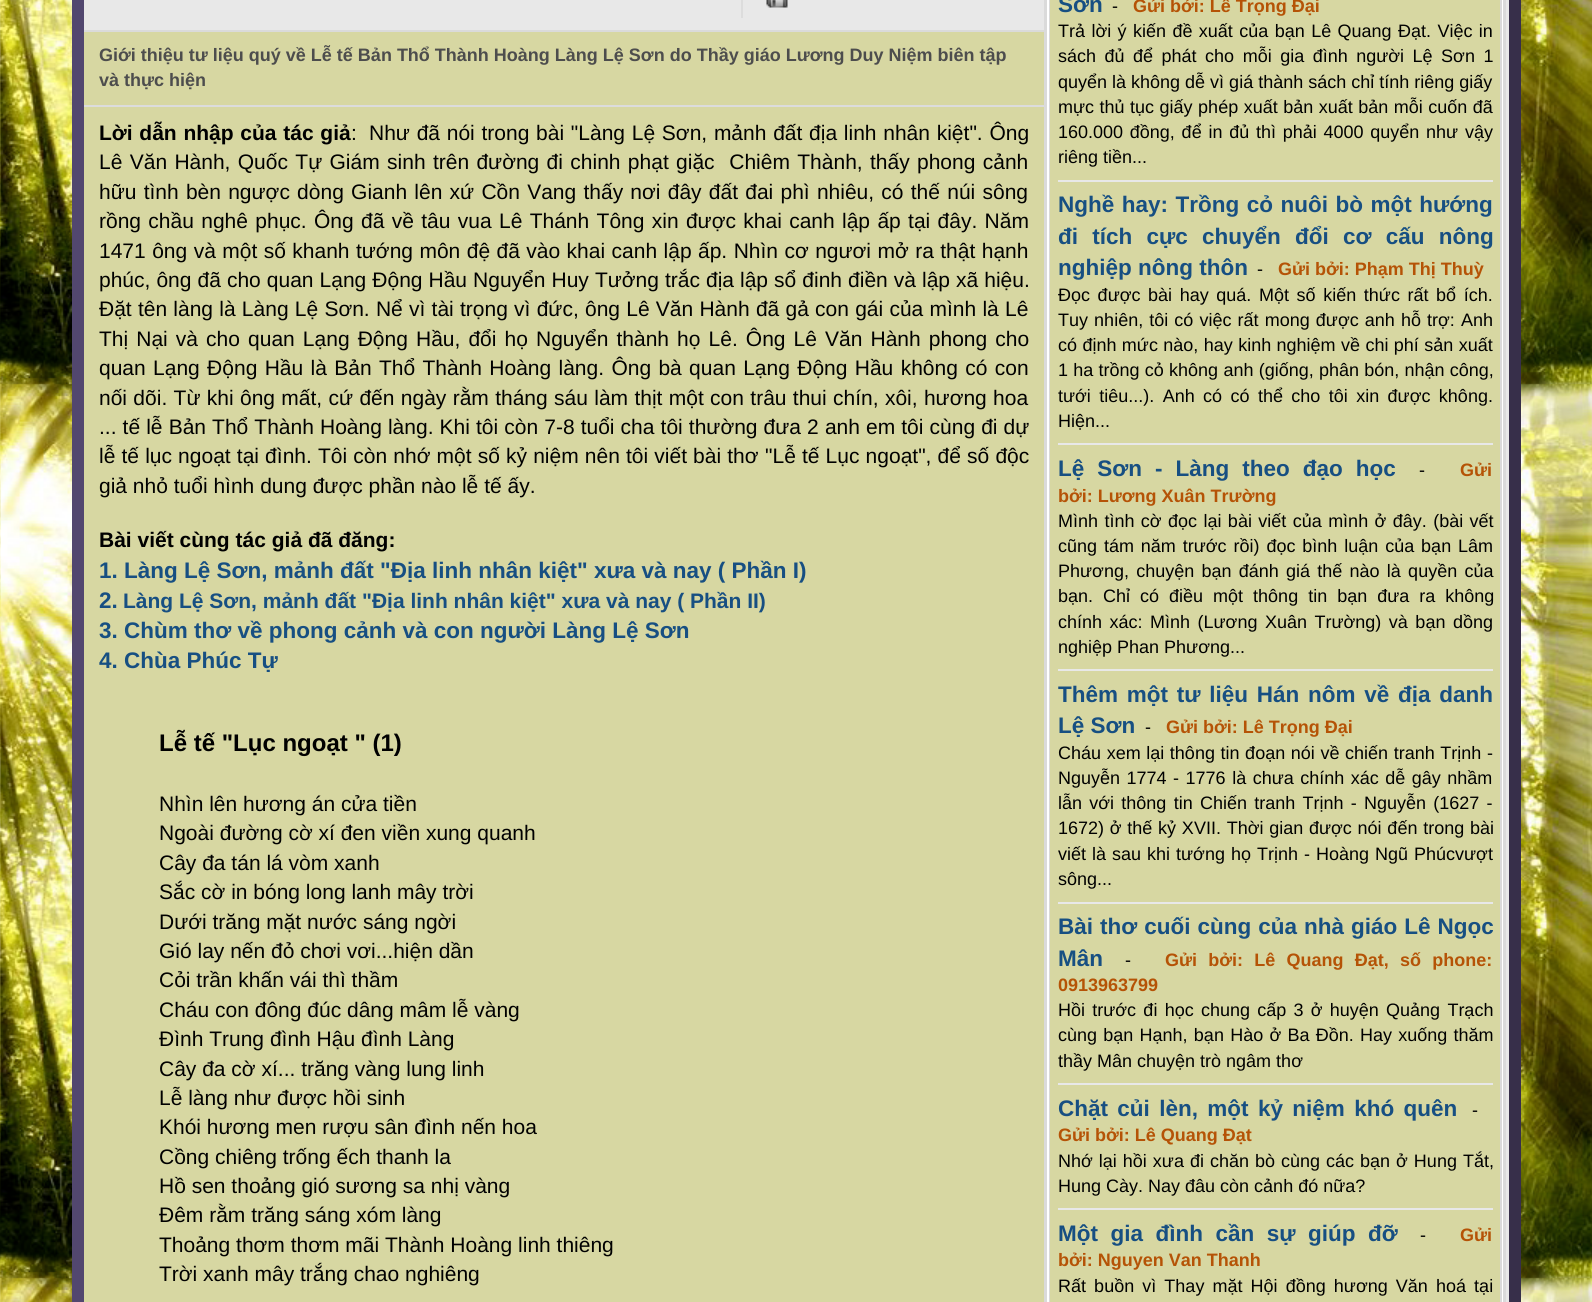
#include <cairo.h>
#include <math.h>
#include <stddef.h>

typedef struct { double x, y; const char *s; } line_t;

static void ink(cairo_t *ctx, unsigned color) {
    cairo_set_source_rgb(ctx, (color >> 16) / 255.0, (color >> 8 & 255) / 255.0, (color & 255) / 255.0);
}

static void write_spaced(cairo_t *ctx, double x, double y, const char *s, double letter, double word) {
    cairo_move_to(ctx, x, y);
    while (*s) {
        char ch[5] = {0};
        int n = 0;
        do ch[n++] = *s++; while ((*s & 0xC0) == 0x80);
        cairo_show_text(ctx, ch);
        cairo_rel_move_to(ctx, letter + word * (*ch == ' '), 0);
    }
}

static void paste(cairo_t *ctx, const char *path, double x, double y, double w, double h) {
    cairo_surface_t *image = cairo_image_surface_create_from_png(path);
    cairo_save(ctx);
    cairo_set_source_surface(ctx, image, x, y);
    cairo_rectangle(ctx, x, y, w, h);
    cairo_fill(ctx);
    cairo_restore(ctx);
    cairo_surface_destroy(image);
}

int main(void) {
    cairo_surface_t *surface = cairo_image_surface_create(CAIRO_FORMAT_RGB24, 1592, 1302);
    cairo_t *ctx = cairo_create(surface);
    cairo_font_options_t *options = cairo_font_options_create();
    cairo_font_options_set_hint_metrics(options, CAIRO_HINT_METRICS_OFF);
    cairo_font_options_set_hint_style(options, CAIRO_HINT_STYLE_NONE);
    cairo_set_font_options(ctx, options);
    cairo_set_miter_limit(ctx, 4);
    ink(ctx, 0xFFFFFF);
    cairo_paint(ctx);
    paste(ctx, "media/1.png", 0, 0, 1592, 1302);
    ink(ctx, 0xE8E8E8);
    cairo_rectangle(ctx, 84, 0, 1425, 1302);
    cairo_fill(ctx);
    ink(ctx, 0x372F4A);
    cairo_new_path(ctx);
    cairo_move_to(ctx, 1521, -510);
    cairo_line_to(ctx, 1521, 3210);
    cairo_line_to(ctx, 1509, 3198);
    cairo_line_to(ctx, 1509, -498);
    cairo_close_path(ctx);
    cairo_fill(ctx);
    ink(ctx, 0x52476F);
    cairo_new_path(ctx);
    cairo_move_to(ctx, 72, 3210);
    cairo_line_to(ctx, 72, -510);
    cairo_line_to(ctx, 84, -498);
    cairo_line_to(ctx, 84, 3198);
    cairo_close_path(ctx);
    cairo_fill(ctx);
    ink(ctx, 0xDADADA);
    cairo_rectangle(ctx, 84, 30, 960, 2);
    cairo_fill(ctx);
    ink(ctx, 0xDCDCDC);
    cairo_rectangle(ctx, 741, 0, 2, 18);
    cairo_fill(ctx);
    paste(ctx, "media/2.png", 766, 0, 22, 8);
    ink(ctx, 0xD7D7A2);
    cairo_rectangle(ctx, 84, 32, 960, 73);
    cairo_fill(ctx);
    ink(ctx, 0xDCDCDC);
    cairo_rectangle(ctx, 84, 105, 960, 2);
    cairo_fill(ctx);
    cairo_select_font_face(ctx, "Liberation Sans", CAIRO_FONT_SLANT_NORMAL, CAIRO_FONT_WEIGHT_BOLD);
    cairo_set_font_size(ctx, 18);
    ink(ctx, 0x4D4D4D);
    cairo_move_to(ctx, 99, 61);
    cairo_show_text(ctx, "Giới thiệu tư liệu quý về Lễ tế Bản Thổ Thành Hoàng Làng Lệ Sơn do Thầy giáo Lương Duy Niệm biên tập");
    cairo_move_to(ctx, 99, 86);
    cairo_show_text(ctx, "và thực hiện");
    ink(ctx, 0xD7D7A2);
    cairo_rectangle(ctx, 84, 107, 960, 1195);
    cairo_fill(ctx);
    cairo_set_font_size(ctx, 21);
    ink(ctx, 0x000000);
    write_spaced(ctx, 99, 140, "Lời dẫn nhập của tác giả", 0, 0.9);
    cairo_select_font_face(ctx, "Liberation Sans", CAIRO_FONT_SLANT_NORMAL, CAIRO_FONT_WEIGHT_NORMAL);
    cairo_move_to(ctx, 351, 140);
    cairo_show_text(ctx, ":");
    write_spaced(ctx, 369, 140, "Như đã nói trong bài \"Làng Lệ Sơn, mảnh đất địa linh nhân kiệt\". Ông", 0, 0.9);
    write_spaced(ctx, 99, 169, "Lê Văn Hành, Quốc Tự Giám sinh trên đường đi chinh phạt giặc  Chiêm Thành, thấy phong cảnh", 0, 1.5);
    write_spaced(ctx, 99, 199, "hữu tình bèn ngược dòng Gianh lên xứ Cồn Vang thấy nơi đây đất đai phì nhiêu, có thế núi sông", 0, 1.4);
    write_spaced(ctx, 99, 228, "rồng chầu nghê phục. Ông đã về tâu vua Lê Thánh Tông xin được khai canh lập ấp tại đây. Năm", 0, 1.5);
    write_spaced(ctx, 99, 258, "1471 ông và một số khanh tướng môn đệ đã vào khai canh lập ấp. Nhìn cơ ngươi mở ra thật hạnh", 0, 0.6);
    write_spaced(ctx, 99, 287, "phúc, ông đã cho quan Lạng Động Hầu Nguyển Huy Tưởng trắc địa lập sổ đinh điền và lập xã hiệu.", 0, 0.2);
    write_spaced(ctx, 99, 316, "Đặt tên làng là Làng Lệ Sơn. Nể vì tài trọng vì đức, ông Lê Văn Hành đã gả con gái của mình là Lê", 0, 0.4);
    write_spaced(ctx, 99, 346, "Thị Nại và cho quan Lạng Động Hầu, đổi họ Nguyển thành họ Lê. Ông Lê Văn Hành phong cho", 0, 2.25);
    write_spaced(ctx, 99, 375, "quan Lạng Động Hầu là Bản Thổ Thành Hoàng làng. Ông bà quan Lạng Động Hầu không có con", 0, 1.5);
    write_spaced(ctx, 99, 405, "nối dõi. Từ khi ông mất, cứ đến ngày rằm tháng sáu làm thịt một con trâu thui chín, xôi, hương hoa", 0, 0.5);
    write_spaced(ctx, 99, 434, "... tế lễ Bản Thổ Thành Hoàng làng. Khi tôi còn 7-8 tuổi cha tôi thường đưa 2 anh em tôi cùng đi dự", 0, 0.25);
    write_spaced(ctx, 99, 463, "lễ tế lục ngoạt tại đình. Tôi còn nhớ một số kỷ niệm nên tôi viết bài thơ", 0, 0.3);
    write_spaced(ctx, 765, 463, "\"Lễ tế Lục ngoạt\", để số độc", 0, 0.3);
    cairo_move_to(ctx, 99, 493);
    cairo_show_text(ctx, "giả nhỏ tuổi hình dung được phần nào lễ tế ấy.");
    cairo_select_font_face(ctx, "Liberation Sans", CAIRO_FONT_SLANT_NORMAL, CAIRO_FONT_WEIGHT_BOLD);
    cairo_move_to(ctx, 99, 547);
    cairo_show_text(ctx, "Bài viết cùng tác giả đã đăng:");
    cairo_set_font_size(ctx, 22.5);
    ink(ctx, 0x174F82);
    cairo_move_to(ctx, 99, 578);
    cairo_show_text(ctx, "1. Làng Lệ Sơn, mảnh đất \"Địa linh nhân kiệt\" xưa và nay ( Phần I)");
    cairo_move_to(ctx, 99, 608);
    cairo_show_text(ctx, "2.");
    cairo_set_font_size(ctx, 21);
    cairo_move_to(ctx, 123, 608);
    cairo_show_text(ctx, "Làng Lệ Sơn, mảnh đất \"Địa linh nhân kiệt\" xưa và nay ( Phần II)");
    cairo_set_font_size(ctx, 22.5);
    {
        static const line_t items[] = {
            {99, 638, "3. Chùm thơ về phong cảnh và con người Làng Lệ Sơn"},
            {99, 668, "4."},
            {124, 668, "Chùa Phúc Tự"},
        };
        for (size_t i = 0; i < sizeof items / sizeof *items; i++) {
            cairo_move_to(ctx, items[i].x, items[i].y);
            cairo_show_text(ctx, items[i].s);
        }
    }
    cairo_set_font_size(ctx, 24);
    ink(ctx, 0x000000);
    cairo_move_to(ctx, 159, 751);
    cairo_show_text(ctx, "Lễ tế \"Lục ngoạt \" (1)");
    cairo_select_font_face(ctx, "Liberation Sans", CAIRO_FONT_SLANT_NORMAL, CAIRO_FONT_WEIGHT_NORMAL);
    cairo_set_font_size(ctx, 21);
    {
        static const line_t items[] = {
            {159, 811, "Nhìn lên hương án cửa tiền"},
            {159, 840, "Ngoài đường cờ xí đen viền xung quanh"},
            {159, 870, "Cây đa tán lá vòm xanh"},
            {159, 899, "Sắc cờ in bóng long lanh mây trời"},
            {159, 929, "Dưới trăng mặt nước sáng ngời"},
            {159, 958, "Gió lay nến đỏ chơi vơi...hiện dần"},
            {159, 987, "Cỏi trần khấn vái thì thầm"},
            {159, 1017, "Cháu con đông đúc dâng mâm lễ vàng"},
            {159, 1046, "Đình Trung đình Hậu đình Làng"},
            {159, 1076, "Cây đa cờ xí... trăng vàng lung linh"},
            {159, 1105, "Lễ làng như được hồi sinh"},
            {159, 1134, "Khói hương men rượu sân đình nến hoa"},
            {159, 1164, "Cồng chiêng trống ếch thanh la"},
            {159, 1193, "Hồ sen thoảng gió sương sa nhị vàng"},
            {159, 1222, "Đêm rằm trăng sáng xóm làng"},
            {159, 1252, "Thoảng thơm thơm mãi Thành Hoàng linh thiêng"},
            {159, 1281, "Trời xanh mây trắng chao nghiêng"},
        };
        for (size_t i = 0; i < sizeof items / sizeof *items; i++) {
            cairo_move_to(ctx, items[i].x, items[i].y);
            cairo_show_text(ctx, items[i].s);
        }
    }
    cairo_rectangle(ctx, 1045, -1, 460, 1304);
    ink(ctx, 0xDADADA);
    cairo_stroke(ctx);
    cairo_rectangle(ctx, 1047, -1, 457, 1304);
    cairo_stroke(ctx);
    cairo_rectangle(ctx, 1048, -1, 454, 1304);
    ink(ctx, 0xFFFFFF);
    cairo_stroke(ctx);
    cairo_rectangle(ctx, 1050, -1, 451, 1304);
    ink(ctx, 0xDADADA);
    cairo_stroke(ctx);
    ink(ctx, 0xD7D7A2);
    cairo_rectangle(ctx, 1050, 0, 450, 1302);
    cairo_fill(ctx);
    ink(ctx, 0xE8E8E8);
    cairo_rectangle(ctx, 1058, 180, 435, 2);
    cairo_fill(ctx);
    cairo_select_font_face(ctx, "Liberation Sans", CAIRO_FONT_SLANT_NORMAL, CAIRO_FONT_WEIGHT_BOLD);
    cairo_set_font_size(ctx, 22.5);
    ink(ctx, 0x174F82);
    cairo_move_to(ctx, 1058, 12);
    cairo_show_text(ctx, "Sơn");
    cairo_select_font_face(ctx, "Liberation Sans", CAIRO_FONT_SLANT_NORMAL, CAIRO_FONT_WEIGHT_NORMAL);
    cairo_set_font_size(ctx, 18);
    ink(ctx, 0x000000);
    cairo_move_to(ctx, 1112, 12);
    cairo_show_text(ctx, "-");
    cairo_select_font_face(ctx, "Liberation Sans", CAIRO_FONT_SLANT_NORMAL, CAIRO_FONT_WEIGHT_BOLD);
    ink(ctx, 0xB55306);
    cairo_move_to(ctx, 1133, 12);
    cairo_show_text(ctx, "Gửi bởi: Lê Trọng Đại");
    cairo_select_font_face(ctx, "Liberation Sans", CAIRO_FONT_SLANT_NORMAL, CAIRO_FONT_WEIGHT_NORMAL);
    ink(ctx, 0x000000);
    write_spaced(ctx, 1058, 37, "Trả lời ý kiến đề xuất của bạn Lê Quang Đạt. Việc in", 0, 1.4);
    write_spaced(ctx, 1058, 62, "sách đủ để phát cho mỗi gia đình người Lệ Sơn 1", 0, 3.5);
    cairo_move_to(ctx, 1058, 88);
    cairo_show_text(ctx, "quyển là không dễ vì giá thành sách chỉ tính riêng giấy");
    write_spaced(ctx, 1058, 113, "mực thủ tục giấy phép xuất bản xuất bản mỗi cuốn đã", 0, 0.5);
    write_spaced(ctx, 1058, 138, "160.000 đồng, để in đủ thì phải 4000 quyển như vậy", 0, 1.75);
    cairo_move_to(ctx, 1058, 163);
    cairo_show_text(ctx, "riêng tiền...");
    ink(ctx, 0xE8E8E8);
    cairo_rectangle(ctx, 1058, 443, 435, 2);
    cairo_fill(ctx);
    cairo_select_font_face(ctx, "Liberation Sans", CAIRO_FONT_SLANT_NORMAL, CAIRO_FONT_WEIGHT_BOLD);
    cairo_set_font_size(ctx, 22.5);
    ink(ctx, 0x174F82);
    write_spaced(ctx, 1058, 212, "Nghề hay: Trồng cỏ nuôi bò một hướng", 0, 1.25);
    write_spaced(ctx, 1058, 244, "đi tích cực chuyển đổi cơ cấu nông", 0, 8);
    cairo_move_to(ctx, 1058, 275);
    cairo_show_text(ctx, "nghiệp nông thôn");
    cairo_select_font_face(ctx, "Liberation Sans", CAIRO_FONT_SLANT_NORMAL, CAIRO_FONT_WEIGHT_NORMAL);
    cairo_set_font_size(ctx, 18);
    ink(ctx, 0x000000);
    cairo_move_to(ctx, 1257, 275);
    cairo_show_text(ctx, "-");
    cairo_select_font_face(ctx, "Liberation Sans", CAIRO_FONT_SLANT_NORMAL, CAIRO_FONT_WEIGHT_BOLD);
    ink(ctx, 0xB55306);
    cairo_move_to(ctx, 1278, 275);
    cairo_show_text(ctx, "Gửi bởi: Phạm Thị Thuỳ");
    cairo_select_font_face(ctx, "Liberation Sans", CAIRO_FONT_SLANT_NORMAL, CAIRO_FONT_WEIGHT_NORMAL);
    ink(ctx, 0x000000);
    write_spaced(ctx, 1058, 301, "Đọc được bài hay quá. Một số kiến thức rất bổ ích.", 0, 2.6);
    write_spaced(ctx, 1058, 326, "Tuy nhiên, tôi có việc rất mong được anh hỗ trợ: Anh", 0, 1.1);
    write_spaced(ctx, 1058, 351, "có định mức nào, hay kinh nghiệm về chi phí sản xuất", 0, 0.4);
    write_spaced(ctx, 1058, 376, "1 ha trồng cỏ không anh (giống, phân bón, nhận công,", 0, 0.25);
    write_spaced(ctx, 1058, 402, "tưới tiêu...). Anh có có thể cho tôi xin được không.", 0, 3.4);
    cairo_move_to(ctx, 1058, 427);
    cairo_show_text(ctx, "Hiện...");
    ink(ctx, 0xE8E8E8);
    cairo_rectangle(ctx, 1058, 669, 435, 2);
    cairo_fill(ctx);
    cairo_select_font_face(ctx, "Liberation Sans", CAIRO_FONT_SLANT_NORMAL, CAIRO_FONT_WEIGHT_BOLD);
    cairo_set_font_size(ctx, 22.5);
    ink(ctx, 0x174F82);
    write_spaced(ctx, 1058, 476, "Lệ Sơn - Làng theo đạo học", 0, 6.75);
    cairo_select_font_face(ctx, "Liberation Sans", CAIRO_FONT_SLANT_NORMAL, CAIRO_FONT_WEIGHT_NORMAL);
    cairo_set_font_size(ctx, 18);
    ink(ctx, 0x000000);
    cairo_move_to(ctx, 1419, 476);
    cairo_show_text(ctx, "-");
    cairo_select_font_face(ctx, "Liberation Sans", CAIRO_FONT_SLANT_NORMAL, CAIRO_FONT_WEIGHT_BOLD);
    ink(ctx, 0xB55306);
    cairo_move_to(ctx, 1460, 476);
    cairo_show_text(ctx, "Gửi");
    cairo_move_to(ctx, 1058, 502);
    cairo_show_text(ctx, "bởi: Lương Xuân Trường");
    cairo_select_font_face(ctx, "Liberation Sans", CAIRO_FONT_SLANT_NORMAL, CAIRO_FONT_WEIGHT_NORMAL);
    ink(ctx, 0x000000);
    write_spaced(ctx, 1058, 527, "Mình tình cờ đọc lại bài viết của mình ở đây. (bài vết", 0, 1.4);
    write_spaced(ctx, 1058, 552, "cũng tám năm trước rồi) đọc bình luận của bạn Lâm", 0, 1.9);
    write_spaced(ctx, 1058, 577, "Phương, chuyện bạn đánh giá thế nào là quyền của", 0, 2.25);
    write_spaced(ctx, 1058, 602, "bạn. Chỉ có điều một thông tin bạn đưa ra không", 0, 5);
    write_spaced(ctx, 1058, 628, "chính xác: Mình (Lương Xuân Trường) và bạn dồng", 0, 2.5);
    cairo_move_to(ctx, 1058, 653);
    cairo_show_text(ctx, "nghiệp Phan Phương...");
    ink(ctx, 0xE8E8E8);
    cairo_rectangle(ctx, 1058, 902, 435, 2);
    cairo_fill(ctx);
    cairo_select_font_face(ctx, "Liberation Sans", CAIRO_FONT_SLANT_NORMAL, CAIRO_FONT_WEIGHT_BOLD);
    cairo_set_font_size(ctx, 22.5);
    ink(ctx, 0x174F82);
    write_spaced(ctx, 1058, 702, "Thêm một tư liệu Hán nôm về địa danh", 0, 2.5);
    cairo_move_to(ctx, 1058, 733);
    cairo_show_text(ctx, "Lệ Sơn");
    cairo_select_font_face(ctx, "Liberation Sans", CAIRO_FONT_SLANT_NORMAL, CAIRO_FONT_WEIGHT_NORMAL);
    cairo_set_font_size(ctx, 18);
    ink(ctx, 0x000000);
    cairo_move_to(ctx, 1145, 733);
    cairo_show_text(ctx, "-");
    cairo_select_font_face(ctx, "Liberation Sans", CAIRO_FONT_SLANT_NORMAL, CAIRO_FONT_WEIGHT_BOLD);
    ink(ctx, 0xB55306);
    cairo_move_to(ctx, 1166, 733);
    cairo_show_text(ctx, "Gửi bởi: Lê Trọng Đại");
    cairo_select_font_face(ctx, "Liberation Sans", CAIRO_FONT_SLANT_NORMAL, CAIRO_FONT_WEIGHT_NORMAL);
    ink(ctx, 0x000000);
    write_spaced(ctx, 1058, 759, "Cháu xem lại thông tin đoạn nói về chiến tranh Trịnh -", 0, 0.6);
    write_spaced(ctx, 1058, 784, "Nguyễn 1774 - 1776 là chưa chính xác dễ gây nhầm", 0, 1.5);
    write_spaced(ctx, 1058, 809, "lẫn với thông tin Chiến tranh Trịnh - Nguyễn (1627 -", 0, 2.25);
    write_spaced(ctx, 1058, 834, "1672) ở thế kỷ XVII. Thời gian được nói đến trong bài", 0, 0.75);
    write_spaced(ctx, 1058, 860, "viết là sau khi tướng họ Trịnh - Hoàng Ngũ Phúcvượt", 0, 1);
    cairo_move_to(ctx, 1058, 885);
    cairo_show_text(ctx, "sông...");
    ink(ctx, 0xE8E8E8);
    cairo_rectangle(ctx, 1058, 1083, 435, 2);
    cairo_fill(ctx);
    cairo_select_font_face(ctx, "Liberation Sans", CAIRO_FONT_SLANT_NORMAL, CAIRO_FONT_WEIGHT_BOLD);
    cairo_set_font_size(ctx, 22.5);
    ink(ctx, 0x174F82);
    write_spaced(ctx, 1058, 934, "Bài thơ cuối cùng của nhà giáo Lê Ngọc", 0, 0.75);
    cairo_move_to(ctx, 1058, 966);
    cairo_show_text(ctx, "Mân");
    cairo_select_font_face(ctx, "Liberation Sans", CAIRO_FONT_SLANT_NORMAL, CAIRO_FONT_WEIGHT_NORMAL);
    cairo_set_font_size(ctx, 18);
    ink(ctx, 0x000000);
    cairo_move_to(ctx, 1125, 966);
    cairo_show_text(ctx, "-");
    cairo_select_font_face(ctx, "Liberation Sans", CAIRO_FONT_SLANT_NORMAL, CAIRO_FONT_WEIGHT_BOLD);
    ink(ctx, 0xB55306);
    write_spaced(ctx, 1165, 966, "Gửi bởi: Lê Quang Đạt, số phone:", 0, 6.25);
    cairo_move_to(ctx, 1058, 991);
    cairo_show_text(ctx, "0913963799");
    cairo_select_font_face(ctx, "Liberation Sans", CAIRO_FONT_SLANT_NORMAL, CAIRO_FONT_WEIGHT_NORMAL);
    ink(ctx, 0x000000);
    write_spaced(ctx, 1058, 1016, "Hồi trước đi học chung cấp 3 ở huyện Quảng Trạch", 0, 2.25);
    write_spaced(ctx, 1058, 1041, "cùng bạn Hạnh, bạn Hào ở Ba Đồn. Hay xuống thăm", 0, 1.25);
    cairo_move_to(ctx, 1058, 1067);
    cairo_show_text(ctx, "thầy Mân chuyện trò ngâm thơ");
    ink(ctx, 0xE8E8E8);
    cairo_rectangle(ctx, 1058, 1208, 435, 2);
    cairo_fill(ctx);
    cairo_select_font_face(ctx, "Liberation Sans", CAIRO_FONT_SLANT_NORMAL, CAIRO_FONT_WEIGHT_BOLD);
    cairo_set_font_size(ctx, 22.5);
    ink(ctx, 0x174F82);
    write_spaced(ctx, 1058, 1116, "Chặt củi lèn, một kỷ niệm khó quên", 0, 3.1);
    cairo_select_font_face(ctx, "Liberation Sans", CAIRO_FONT_SLANT_NORMAL, CAIRO_FONT_WEIGHT_NORMAL);
    cairo_set_font_size(ctx, 18);
    ink(ctx, 0x000000);
    cairo_move_to(ctx, 1472, 1116);
    cairo_show_text(ctx, "-");
    cairo_select_font_face(ctx, "Liberation Sans", CAIRO_FONT_SLANT_NORMAL, CAIRO_FONT_WEIGHT_BOLD);
    ink(ctx, 0xB55306);
    cairo_move_to(ctx, 1058, 1141);
    cairo_show_text(ctx, "Gửi bởi: Lê Quang Đạt");
    cairo_select_font_face(ctx, "Liberation Sans", CAIRO_FONT_SLANT_NORMAL, CAIRO_FONT_WEIGHT_NORMAL);
    ink(ctx, 0x000000);
    write_spaced(ctx, 1058, 1167, "Nhớ lại hồi xưa đi chăn bò cùng các bạn ở Hung Tắt,", 0, 1);
    cairo_move_to(ctx, 1058, 1192);
    cairo_show_text(ctx, "Hung Cày. Nay đâu còn cảnh đó nữa?");
    cairo_select_font_face(ctx, "Liberation Sans", CAIRO_FONT_SLANT_NORMAL, CAIRO_FONT_WEIGHT_BOLD);
    cairo_set_font_size(ctx, 22.5);
    ink(ctx, 0x174F82);
    write_spaced(ctx, 1058, 1241, "Một gia đình cần sự giúp đỡ", 0, 6.25);
    cairo_select_font_face(ctx, "Liberation Sans", CAIRO_FONT_SLANT_NORMAL, CAIRO_FONT_WEIGHT_NORMAL);
    cairo_set_font_size(ctx, 18);
    ink(ctx, 0x000000);
    cairo_move_to(ctx, 1420, 1241);
    cairo_show_text(ctx, "-");
    cairo_select_font_face(ctx, "Liberation Sans", CAIRO_FONT_SLANT_NORMAL, CAIRO_FONT_WEIGHT_BOLD);
    ink(ctx, 0xB55306);
    cairo_move_to(ctx, 1460, 1241);
    cairo_show_text(ctx, "Gửi");
    cairo_move_to(ctx, 1058, 1266);
    cairo_show_text(ctx, "bởi: Nguyen Van Thanh");
    cairo_select_font_face(ctx, "Liberation Sans", CAIRO_FONT_SLANT_NORMAL, CAIRO_FONT_WEIGHT_NORMAL);
    ink(ctx, 0x000000);
    write_spaced(ctx, 1058, 1292, "Rất buồn vì Thay mặt Hội đồng hương Văn hoá tại", 0, 3.1);
    cairo_surface_write_to_png(surface, "image.png");
    cairo_font_options_destroy(options);
    cairo_destroy(ctx);
    cairo_surface_destroy(surface);
    return 0;
}
